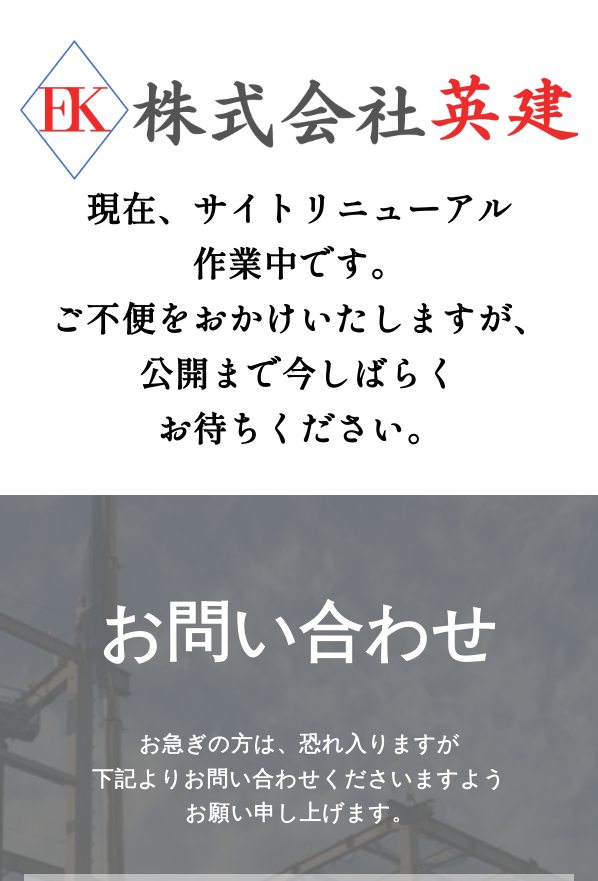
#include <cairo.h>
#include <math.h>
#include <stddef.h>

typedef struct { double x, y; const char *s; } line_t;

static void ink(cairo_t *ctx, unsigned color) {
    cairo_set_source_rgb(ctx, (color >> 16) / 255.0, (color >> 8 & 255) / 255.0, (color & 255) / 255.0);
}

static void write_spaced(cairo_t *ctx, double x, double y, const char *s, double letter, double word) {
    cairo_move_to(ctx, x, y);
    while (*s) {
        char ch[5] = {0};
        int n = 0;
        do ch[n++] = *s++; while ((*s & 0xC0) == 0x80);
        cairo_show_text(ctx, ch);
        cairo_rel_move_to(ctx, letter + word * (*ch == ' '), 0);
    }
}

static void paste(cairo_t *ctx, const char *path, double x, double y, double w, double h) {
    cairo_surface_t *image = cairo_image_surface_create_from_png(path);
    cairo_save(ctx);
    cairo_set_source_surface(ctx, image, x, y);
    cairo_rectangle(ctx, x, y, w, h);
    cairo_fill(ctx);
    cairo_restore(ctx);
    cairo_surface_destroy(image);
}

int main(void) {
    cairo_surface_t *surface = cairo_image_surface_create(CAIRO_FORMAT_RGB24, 598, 881);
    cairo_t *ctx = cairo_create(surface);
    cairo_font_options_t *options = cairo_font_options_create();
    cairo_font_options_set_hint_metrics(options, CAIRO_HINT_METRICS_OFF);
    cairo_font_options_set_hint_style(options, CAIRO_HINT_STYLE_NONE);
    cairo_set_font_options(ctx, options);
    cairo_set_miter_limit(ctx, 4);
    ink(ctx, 0xFFFFFF);
    cairo_paint(ctx);
    paste(ctx, "media/1.png", 20, 40, 558, 140);
    cairo_select_font_face(ctx, "Shippori Mincho", CAIRO_FONT_SLANT_NORMAL, CAIRO_FONT_WEIGHT_BOLD);
    cairo_set_font_size(ctx, 34.5);
    ink(ctx, 0x000000);
    {
        static const line_t items[] = {
            {86, 222, "現在、サイトリニューアル"},
            {192, 277, "作業中です。"},
            {50, 332, "ご不便をおかけいたしますが、"},
            {139, 387, "公開まで今しばらく"},
            {157, 442, "お待ちください。"},
        };
        for (size_t i = 0; i < sizeof items / sizeof *items; i++) {
            write_spaced(ctx, items[i].x, items[i].y, items[i].s, 1.1, 0);
        }
    }
    paste(ctx, "media/2.png", 0, 495, 598, 386);
    cairo_select_font_face(ctx, "WenQuanYi Zen Hei", CAIRO_FONT_SLANT_NORMAL, CAIRO_FONT_WEIGHT_BOLD);
    cairo_set_font_size(ctx, 64.5);
    ink(ctx, 0xFFFFFF);
    write_spaced(ctx, 99, 654, "お問い合わせ", 1.1, 0);
    cairo_set_font_size(ctx, 21.5);
    {
        static const line_t items[] = {
            {139, 751, "お急ぎの方は、恐れ入りますが"},
            {92, 786, "下記よりお問い合わせくださいますよう"},
            {185, 820, "お願い申し上げます。"},
        };
        for (size_t i = 0; i < sizeof items / sizeof *items; i++) {
            write_spaced(ctx, items[i].x, items[i].y, items[i].s, 1.1, 0);
        }
    }
    cairo_set_source_rgba(ctx, 1, 1, 1, 0.48);
    cairo_rectangle(ctx, 24, 874, 550, 7);
    cairo_fill(ctx);
    cairo_surface_write_to_png(surface, "image.png");
    cairo_font_options_destroy(options);
    cairo_destroy(ctx);
    cairo_surface_destroy(surface);
    return 0;
}
